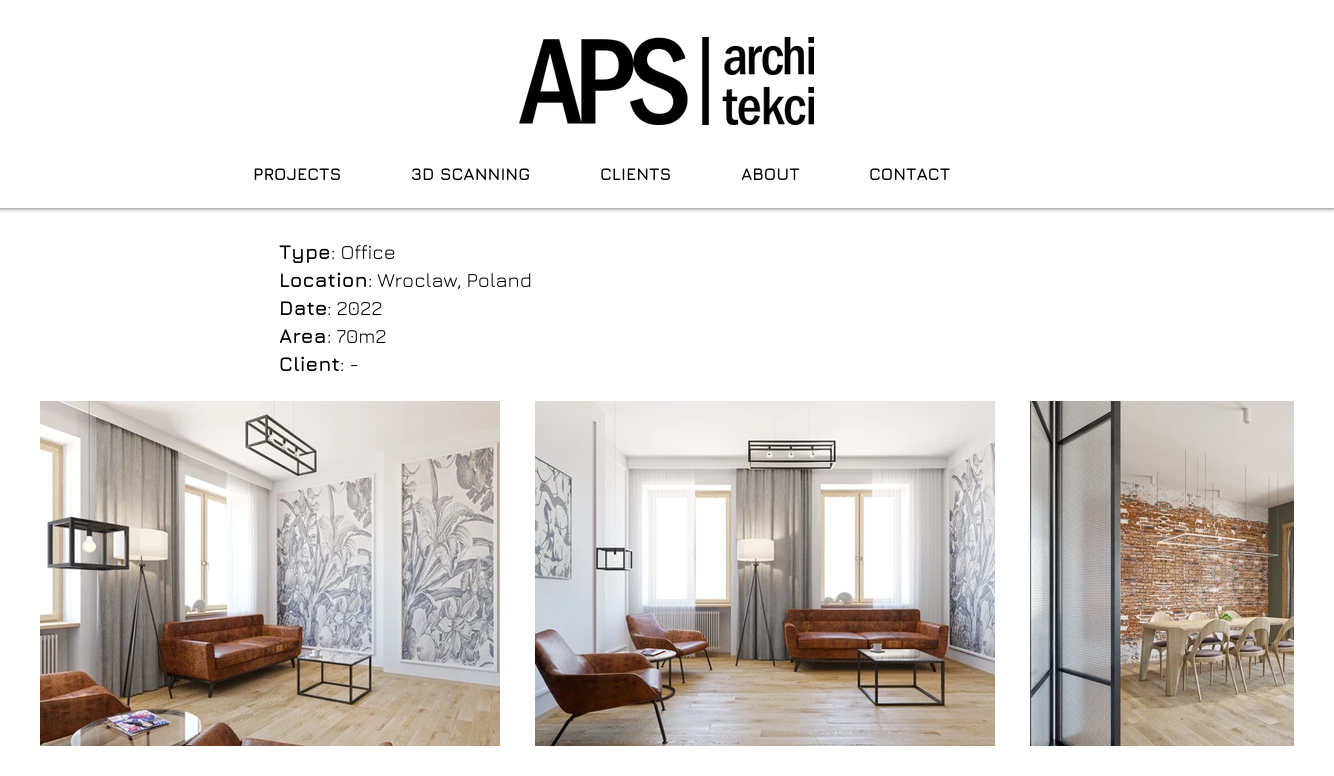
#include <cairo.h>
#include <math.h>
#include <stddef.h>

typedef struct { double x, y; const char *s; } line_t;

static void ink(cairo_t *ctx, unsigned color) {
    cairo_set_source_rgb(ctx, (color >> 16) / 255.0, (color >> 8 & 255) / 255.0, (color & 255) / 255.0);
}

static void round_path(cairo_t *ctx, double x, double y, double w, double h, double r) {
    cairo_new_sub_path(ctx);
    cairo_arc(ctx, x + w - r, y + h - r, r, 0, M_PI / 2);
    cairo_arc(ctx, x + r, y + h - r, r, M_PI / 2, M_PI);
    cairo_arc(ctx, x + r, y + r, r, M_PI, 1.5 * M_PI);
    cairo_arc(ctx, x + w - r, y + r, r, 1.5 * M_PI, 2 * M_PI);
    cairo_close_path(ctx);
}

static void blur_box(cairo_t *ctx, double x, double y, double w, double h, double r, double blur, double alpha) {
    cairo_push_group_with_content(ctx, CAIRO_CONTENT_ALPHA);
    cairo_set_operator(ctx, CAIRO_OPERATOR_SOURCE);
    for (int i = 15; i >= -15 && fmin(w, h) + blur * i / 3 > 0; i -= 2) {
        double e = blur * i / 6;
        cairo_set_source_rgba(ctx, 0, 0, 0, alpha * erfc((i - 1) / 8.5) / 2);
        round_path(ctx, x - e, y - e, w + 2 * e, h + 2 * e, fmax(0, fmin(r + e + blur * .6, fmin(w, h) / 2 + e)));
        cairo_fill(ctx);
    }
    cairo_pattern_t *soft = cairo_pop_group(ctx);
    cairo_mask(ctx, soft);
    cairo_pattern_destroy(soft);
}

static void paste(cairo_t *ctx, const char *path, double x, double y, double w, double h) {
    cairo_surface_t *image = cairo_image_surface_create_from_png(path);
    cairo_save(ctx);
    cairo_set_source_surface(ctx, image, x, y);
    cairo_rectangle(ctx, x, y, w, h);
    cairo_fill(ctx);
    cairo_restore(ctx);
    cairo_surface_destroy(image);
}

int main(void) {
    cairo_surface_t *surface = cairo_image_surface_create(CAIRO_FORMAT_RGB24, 1334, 776);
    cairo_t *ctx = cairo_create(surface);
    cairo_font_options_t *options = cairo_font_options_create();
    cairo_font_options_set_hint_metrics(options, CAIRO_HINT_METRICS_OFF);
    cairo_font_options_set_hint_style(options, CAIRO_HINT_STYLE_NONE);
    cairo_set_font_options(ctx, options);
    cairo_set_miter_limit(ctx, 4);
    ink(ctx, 0xFFFFFF);
    cairo_paint(ctx);
    cairo_save(ctx);
    cairo_rectangle(ctx, 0, 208, 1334, 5);
    cairo_clip(ctx);
    ink(ctx, 0x000000);
    blur_box(ctx, 0, 0, 1334, 208, 0, 2.5, 0.7);
    cairo_restore(ctx);
    paste(ctx, "media/1.png", 519, 37, 295, 88);
    cairo_select_font_face(ctx, "Jura", CAIRO_FONT_SLANT_NORMAL, CAIRO_FONT_WEIGHT_BOLD);
    cairo_set_font_size(ctx, 17);
    ink(ctx, 0x000000);
    {
        static const line_t items[] = {
            {253, 180, "PROJECTS"},
            {411, 180, "3D SCANNING"},
            {600, 180, "CLIENTS"},
            {741, 180, "ABOUT"},
            {869, 180, "CONTACT"},
        };
        for (size_t i = 0; i < sizeof items / sizeof *items; i++) {
            cairo_move_to(ctx, items[i].x, items[i].y);
            cairo_show_text(ctx, items[i].s);
        }
    }
    cairo_set_font_size(ctx, 20);
    cairo_move_to(ctx, 279, 259);
    cairo_show_text(ctx, "Type");
    cairo_select_font_face(ctx, "Jura", CAIRO_FONT_SLANT_NORMAL, CAIRO_FONT_WEIGHT_NORMAL);
    cairo_move_to(ctx, 331, 259);
    cairo_show_text(ctx, ": Office");
    cairo_select_font_face(ctx, "Jura", CAIRO_FONT_SLANT_NORMAL, CAIRO_FONT_WEIGHT_BOLD);
    cairo_move_to(ctx, 279, 287);
    cairo_show_text(ctx, "Location");
    cairo_select_font_face(ctx, "Jura", CAIRO_FONT_SLANT_NORMAL, CAIRO_FONT_WEIGHT_NORMAL);
    cairo_move_to(ctx, 368, 287);
    cairo_show_text(ctx, ": Wroclaw, Poland");
    cairo_select_font_face(ctx, "Jura", CAIRO_FONT_SLANT_NORMAL, CAIRO_FONT_WEIGHT_BOLD);
    cairo_move_to(ctx, 279, 315);
    cairo_show_text(ctx, "Date");
    cairo_select_font_face(ctx, "Jura", CAIRO_FONT_SLANT_NORMAL, CAIRO_FONT_WEIGHT_NORMAL);
    cairo_move_to(ctx, 327, 315);
    cairo_show_text(ctx, ": 2022");
    cairo_select_font_face(ctx, "Jura", CAIRO_FONT_SLANT_NORMAL, CAIRO_FONT_WEIGHT_BOLD);
    cairo_move_to(ctx, 279, 343);
    cairo_show_text(ctx, "Area");
    cairo_select_font_face(ctx, "Jura", CAIRO_FONT_SLANT_NORMAL, CAIRO_FONT_WEIGHT_NORMAL);
    cairo_move_to(ctx, 327, 343);
    cairo_show_text(ctx, ": 70m2");
    cairo_select_font_face(ctx, "Jura", CAIRO_FONT_SLANT_NORMAL, CAIRO_FONT_WEIGHT_BOLD);
    cairo_move_to(ctx, 279, 371);
    cairo_show_text(ctx, "Client");
    cairo_select_font_face(ctx, "Jura", CAIRO_FONT_SLANT_NORMAL, CAIRO_FONT_WEIGHT_NORMAL);
    cairo_move_to(ctx, 340, 371);
    cairo_show_text(ctx, ": -");
    paste(ctx, "media/2.png", 40, 401, 460, 345);
    paste(ctx, "media/3.png", 535, 401, 460, 345);
    paste(ctx, "media/4.png", 1030, 401, 264, 345);
    cairo_surface_write_to_png(surface, "image.png");
    cairo_font_options_destroy(options);
    cairo_destroy(ctx);
    cairo_surface_destroy(surface);
    return 0;
}
